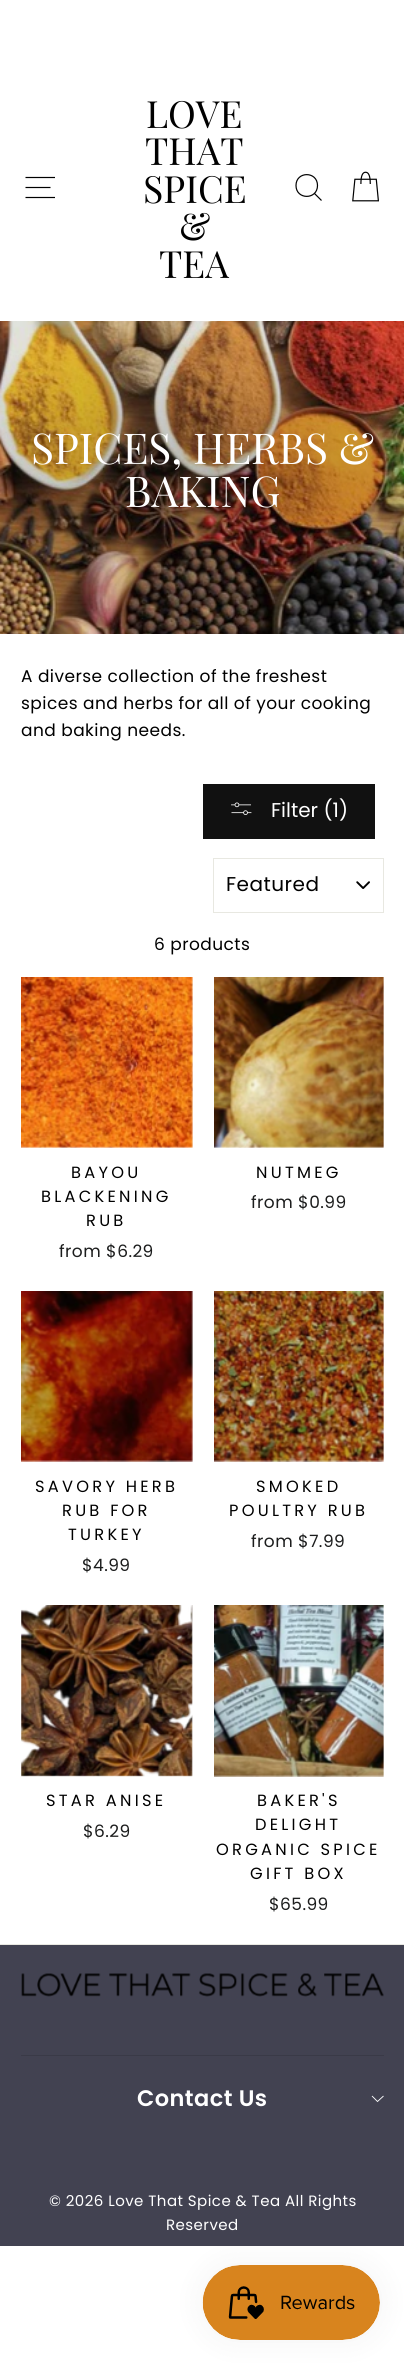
#include <cairo.h>
#include <math.h>
#include <stddef.h>

typedef struct { double x, y; const char *s; } line_t;

static void ink(cairo_t *ctx, unsigned color) {
    cairo_set_source_rgb(ctx, (color >> 16) / 255.0, (color >> 8 & 255) / 255.0, (color & 255) / 255.0);
}

static void write_spaced(cairo_t *ctx, double x, double y, const char *s, double letter, double word) {
    cairo_move_to(ctx, x, y);
    while (*s) {
        char ch[5] = {0};
        int n = 0;
        do ch[n++] = *s++; while ((*s & 0xC0) == 0x80);
        cairo_show_text(ctx, ch);
        cairo_rel_move_to(ctx, letter + word * (*ch == ' '), 0);
    }
}

static void round_path(cairo_t *ctx, double x, double y, double w, double h, double r) {
    cairo_new_sub_path(ctx);
    cairo_arc(ctx, x + w - r, y + h - r, r, 0, M_PI / 2);
    cairo_arc(ctx, x + r, y + h - r, r, M_PI / 2, M_PI);
    cairo_arc(ctx, x + r, y + r, r, M_PI, 1.5 * M_PI);
    cairo_arc(ctx, x + w - r, y + r, r, 1.5 * M_PI, 2 * M_PI);
    cairo_close_path(ctx);
}

static void blur_box(cairo_t *ctx, double x, double y, double w, double h, double r, double blur, double alpha) {
    cairo_push_group_with_content(ctx, CAIRO_CONTENT_ALPHA);
    cairo_set_operator(ctx, CAIRO_OPERATOR_SOURCE);
    for (int i = 15; i >= -15 && fmin(w, h) + blur * i / 3 > 0; i -= 2) {
        double e = blur * i / 6;
        cairo_set_source_rgba(ctx, 0, 0, 0, alpha * erfc((i - 1) / 8.5) / 2);
        round_path(ctx, x - e, y - e, w + 2 * e, h + 2 * e, fmax(0, fmin(r + e + blur * .6, fmin(w, h) / 2 + e)));
        cairo_fill(ctx);
    }
    cairo_pattern_t *soft = cairo_pop_group(ctx);
    cairo_mask(ctx, soft);
    cairo_pattern_destroy(soft);
}

static void paste(cairo_t *ctx, const char *path, double x, double y, double w, double h) {
    cairo_surface_t *image = cairo_image_surface_create_from_png(path);
    cairo_save(ctx);
    cairo_set_source_surface(ctx, image, x, y);
    cairo_rectangle(ctx, x, y, w, h);
    cairo_fill(ctx);
    cairo_restore(ctx);
    cairo_surface_destroy(image);
}

int main(void) {
    cairo_surface_t *surface = cairo_image_surface_create(CAIRO_FORMAT_RGB24, 404, 2364);
    cairo_t *ctx = cairo_create(surface);
    cairo_font_options_t *options = cairo_font_options_create();
    cairo_font_options_set_hint_metrics(options, CAIRO_HINT_METRICS_OFF);
    cairo_font_options_set_hint_style(options, CAIRO_HINT_STYLE_NONE);
    cairo_set_font_options(ctx, options);
    cairo_set_miter_limit(ctx, 4);
    ink(ctx, 0xFFFFFF);
    cairo_paint(ctx);
    cairo_new_path(ctx);
    cairo_move_to(ctx, 25.5, 177.5);
    cairo_line_to(ctx, 55, 177.5);
    cairo_move_to(ctx, 25.5, 187.5);
    cairo_line_to(ctx, 50.5, 187.5);
    cairo_move_to(ctx, 25.5, 197.5);
    cairo_line_to(ctx, 55, 197.5);
    ink(ctx, 0x000000);
    cairo_set_line_width(ctx, 1.2);
    cairo_stroke(ctx);
    cairo_select_font_face(ctx, "Playfair Display", CAIRO_FONT_SLANT_NORMAL, CAIRO_FONT_WEIGHT_NORMAL);
    cairo_set_font_size(ctx, 37.5);
    {
        static const line_t items[] = {
            {146, 128, "LOVE"},
            {145, 165, "THAT"},
            {143, 203, "SPICE"},
            {179, 240, "&"},
            {159, 278, "TEA"},
        };
        for (size_t i = 0; i < sizeof items / sizeof *items; i++) {
            cairo_move_to(ctx, items[i].x, items[i].y);
            cairo_show_text(ctx, items[i].s);
        }
    }
    cairo_new_path(ctx);
    cairo_move_to(ctx, 317.5, 185.5);
    cairo_curve_to(ctx, 317.5, 200, 296, 200, 296, 185.5);
    cairo_curve_to(ctx, 296, 171, 317.5, 171, 317.5, 185.5);
    cairo_close_path(ctx);
    cairo_move_to(ctx, 321.5, 200.5);
    cairo_line_to(ctx, 314.5, 193.5);
    cairo_stroke(ctx);
    paste(ctx, "media/1.png", 352, 171, 27, 31);
    paste(ctx, "media/2.png", 0, 321, 404, 313);
    cairo_set_font_size(ctx, 42.5);
    ink(ctx, 0xFFFFFF);
    cairo_move_to(ctx, 31, 464);
    cairo_show_text(ctx, "SPICES, HERBS &");
    cairo_move_to(ctx, 125, 507);
    cairo_show_text(ctx, "BAKING");
    cairo_select_font_face(ctx, "Poppins", CAIRO_FONT_SLANT_NORMAL, CAIRO_FONT_WEIGHT_NORMAL);
    cairo_set_font_size(ctx, 17);
    ink(ctx, 0x000000);
    {
        static const line_t items[] = {
            {21, 682, "A diverse collection of the freshest"},
            {21, 709, "spices and herbs for all of your cooking"},
            {21, 736, "and baking needs."},
        };
        for (size_t i = 0; i < sizeof items / sizeof *items; i++) {
            write_spaced(ctx, items[i].x, items[i].y, items[i].s, 0.45, 0);
        }
    }
    ink(ctx, 0x111111);
    cairo_rectangle(ctx, 203, 784, 172, 55);
    cairo_fill(ctx);
    paste(ctx, "media/3.png", 231, 802, 21, 13);
    cairo_set_font_size(ctx, 20);
    ink(ctx, 0xFFFFFF);
    cairo_move_to(ctx, 271, 817);
    cairo_show_text(ctx, "Filter (1)");
    paste(ctx, "media/4.png", 356, 881, 14, 8);
    cairo_rectangle(ctx, 213.5, 858.5, 170, 54);
    ink(ctx, 0xE8E8E1);
    cairo_set_line_width(ctx, 1);
    cairo_stroke(ctx);
    ink(ctx, 0x000000);
    write_spaced(ctx, 226, 891, "Featured", 0.5, 0);
    cairo_set_font_size(ctx, 17);
    write_spaced(ctx, 154, 950, "6 products", 0.45, 0);
    paste(ctx, "media/5.png", 21, 977, 172, 171);
    cairo_set_font_size(ctx, 16.25);
    {
        static const line_t items[] = {
            {71, 1178, "BAYOU"},
            {41, 1202, "BLACKENING"},
            {86, 1226, "RUB"},
        };
        for (size_t i = 0; i < sizeof items / sizeof *items; i++) {
            write_spaced(ctx, items[i].x, items[i].y, items[i].s, 3.25, 0);
        }
    }
    cairo_set_font_size(ctx, 17);
    ink(ctx, 0x1C1D1D);
    write_spaced(ctx, 59, 1257, "from $6.29", 0.45, 0);
    paste(ctx, "media/6.png", 214, 977, 170, 171);
    cairo_set_font_size(ctx, 16.25);
    ink(ctx, 0x000000);
    write_spaced(ctx, 256, 1178, "NUTMEG", 3.25, 0);
    cairo_set_font_size(ctx, 17);
    ink(ctx, 0x1C1D1D);
    write_spaced(ctx, 251, 1208, "from $0.99", 0.45, 0);
    paste(ctx, "media/7.png", 21, 1291, 172, 171);
    cairo_set_font_size(ctx, 16.25);
    ink(ctx, 0x000000);
    {
        static const line_t items[] = {
            {35, 1492, "SAVORY HERB"},
            {62, 1516, "RUB FOR"},
            {68, 1540, "TURKEY"},
        };
        for (size_t i = 0; i < sizeof items / sizeof *items; i++) {
            write_spaced(ctx, items[i].x, items[i].y, items[i].s, 3.25, 0);
        }
    }
    cairo_set_font_size(ctx, 17);
    ink(ctx, 0x1C1D1D);
    write_spaced(ctx, 82, 1571, "$4.99", 0.45, 0);
    paste(ctx, "media/8.png", 214, 1291, 170, 171);
    cairo_set_font_size(ctx, 16.25);
    ink(ctx, 0x000000);
    write_spaced(ctx, 256, 1492, "SMOKED", 3.25, 0);
    write_spaced(ctx, 229, 1516, "POULTRY RUB", 3.25, 0);
    cairo_set_font_size(ctx, 17);
    ink(ctx, 0x1C1D1D);
    write_spaced(ctx, 251, 1547, "from $7.99", 0.45, 0);
    paste(ctx, "media/9.png", 21, 1605, 172, 172);
    cairo_set_font_size(ctx, 16.25);
    ink(ctx, 0x000000);
    write_spaced(ctx, 46, 1806, "STAR ANISE", 3.25, 0);
    cairo_set_font_size(ctx, 17);
    ink(ctx, 0x1C1D1D);
    write_spaced(ctx, 83, 1837, "$6.29", 0.45, 0);
    paste(ctx, "media/10.png", 214, 1605, 170, 172);
    cairo_set_font_size(ctx, 16.25);
    ink(ctx, 0x000000);
    {
        static const line_t items[] = {
            {257, 1806, "BAKER'S"},
            {255, 1830, "DELIGHT"},
            {216, 1855, "ORGANIC SPICE"},
            {250, 1879, "GIFT BOX"},
        };
        for (size_t i = 0; i < sizeof items / sizeof *items; i++) {
            write_spaced(ctx, items[i].x, items[i].y, items[i].s, 3.25, 0);
        }
    }
    cairo_set_font_size(ctx, 17);
    ink(ctx, 0x1C1D1D);
    write_spaced(ctx, 269, 1910, "$65.99", 0.45, 0);
    ink(ctx, 0x424251);
    cairo_rectangle(ctx, 0, 1945, 404, 301);
    cairo_fill(ctx);
    ink(ctx, 0xE8E8E1);
    cairo_rectangle(ctx, 0, 1944, 404, 1);
    cairo_fill(ctx);
    paste(ctx, "media/11.png", 21, 1973, 363, 24);
    ink(ctx, 0x3A3A47);
    cairo_rectangle(ctx, 21, 2055, 363, 1);
    cairo_fill(ctx);
    cairo_select_font_face(ctx, "Poppins SemiBold", CAIRO_FONT_SLANT_NORMAL, CAIRO_FONT_WEIGHT_NORMAL);
    cairo_set_font_size(ctx, 22.5);
    ink(ctx, 0xFFFFFF);
    write_spaced(ctx, 137, 2106, "Contact Us", 0.45, 0);
    cairo_new_path(ctx);
    cairo_move_to(ctx, 372, 2096);
    cairo_line_to(ctx, 377.5, 2101.5);
    cairo_line_to(ctx, 383.5, 2096);
    cairo_set_line_width(ctx, 0.9);
    cairo_stroke(ctx);
    cairo_select_font_face(ctx, "Poppins", CAIRO_FONT_SLANT_NORMAL, CAIRO_FONT_WEIGHT_NORMAL);
    cairo_set_font_size(ctx, 15);
    write_spaced(ctx, 49, 2206, "© 2026 Love That Spice & Tea All Rights", 0.45, 0);
    write_spaced(ctx, 166, 2230, "Reserved", 0.45, 0);
    ink(ctx, 0x000000);
    blur_box(ctx, 203, 2265, 177, 75, 37.5, 15.5, 0.05);
    paste(ctx, "media/12.png", 202, 2265, 178, 75);
    cairo_surface_write_to_png(surface, "image.png");
    cairo_font_options_destroy(options);
    cairo_destroy(ctx);
    cairo_surface_destroy(surface);
    return 0;
}
